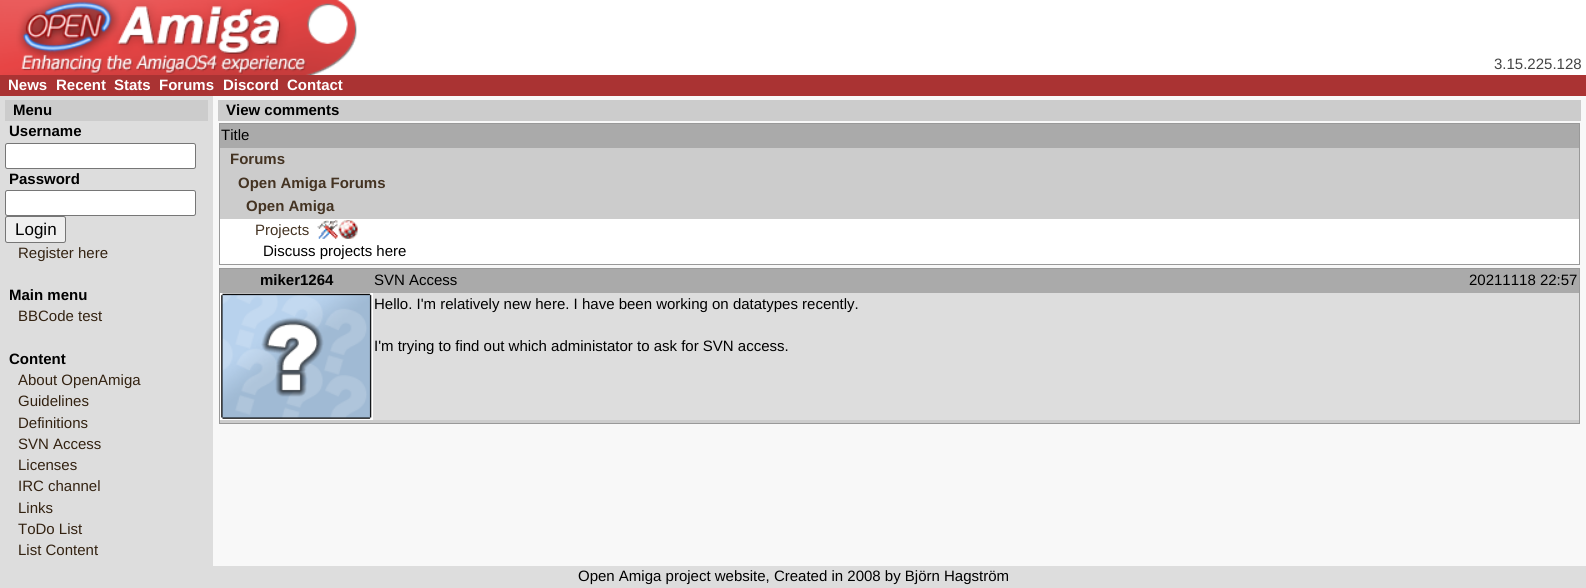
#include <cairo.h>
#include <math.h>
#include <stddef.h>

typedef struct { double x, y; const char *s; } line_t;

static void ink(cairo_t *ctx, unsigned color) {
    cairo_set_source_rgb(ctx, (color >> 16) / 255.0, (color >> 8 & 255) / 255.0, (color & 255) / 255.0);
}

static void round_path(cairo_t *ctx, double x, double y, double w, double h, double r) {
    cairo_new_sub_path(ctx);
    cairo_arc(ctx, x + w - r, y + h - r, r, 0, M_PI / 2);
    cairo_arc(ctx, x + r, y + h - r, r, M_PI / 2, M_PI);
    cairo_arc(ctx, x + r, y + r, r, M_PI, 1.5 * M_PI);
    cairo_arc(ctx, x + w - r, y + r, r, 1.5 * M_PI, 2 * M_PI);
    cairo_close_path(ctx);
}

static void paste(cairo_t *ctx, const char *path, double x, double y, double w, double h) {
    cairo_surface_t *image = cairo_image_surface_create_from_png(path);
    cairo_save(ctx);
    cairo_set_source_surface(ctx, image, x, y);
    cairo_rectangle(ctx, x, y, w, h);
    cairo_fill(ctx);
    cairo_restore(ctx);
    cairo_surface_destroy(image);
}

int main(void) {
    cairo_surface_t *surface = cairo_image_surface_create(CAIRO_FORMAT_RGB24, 1586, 588);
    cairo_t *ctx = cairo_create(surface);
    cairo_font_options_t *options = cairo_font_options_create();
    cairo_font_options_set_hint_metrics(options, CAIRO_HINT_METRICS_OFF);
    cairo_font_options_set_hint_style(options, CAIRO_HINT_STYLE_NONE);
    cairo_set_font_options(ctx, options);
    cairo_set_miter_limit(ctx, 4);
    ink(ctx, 0xDDDDDD);
    cairo_paint(ctx);
    ink(ctx, 0xFFFFFF);
    cairo_rectangle(ctx, 357, 0, 1229, 75);
    cairo_fill(ctx);
    paste(ctx, "media/1.png", 0, 0, 357, 75);
    cairo_select_font_face(ctx, "Liberation Sans", CAIRO_FONT_SLANT_NORMAL, CAIRO_FONT_WEIGHT_NORMAL);
    cairo_set_font_size(ctx, 15);
    ink(ctx, 0x444444);
    cairo_move_to(ctx, 1494, 69);
    cairo_show_text(ctx, "3.15.225.128");
    ink(ctx, 0xAA3333);
    cairo_rectangle(ctx, 0, 75, 1586, 21);
    cairo_fill(ctx);
    cairo_select_font_face(ctx, "Liberation Sans", CAIRO_FONT_SLANT_NORMAL, CAIRO_FONT_WEIGHT_BOLD);
    ink(ctx, 0xFFFFFF);
    {
        static const line_t items[] = {
            {8, 90, "News"},
            {56, 90, "Recent"},
            {114, 90, "Stats"},
            {159, 90, "Forums"},
            {223, 90, "Discord"},
            {287, 90, "Contact"},
        };
        for (size_t i = 0; i < sizeof items / sizeof *items; i++) {
            cairo_move_to(ctx, items[i].x, items[i].y);
            cairo_show_text(ctx, items[i].s);
        }
    }
    ink(ctx, 0xCCCCCC);
    cairo_rectangle(ctx, 5, 100, 203, 21);
    cairo_fill(ctx);
    ink(ctx, 0x000000);
    cairo_move_to(ctx, 13, 115);
    cairo_show_text(ctx, "Menu");
    cairo_move_to(ctx, 9, 136);
    cairo_show_text(ctx, "Username");
    ink(ctx, 0xFFFFFF);
    round_path(ctx, 5.5, 143.5, 190, 25, 2);
    cairo_fill_preserve(ctx);
    ink(ctx, 0x767676);
    cairo_set_line_width(ctx, 1);
    cairo_stroke(ctx);
    ink(ctx, 0x000000);
    cairo_move_to(ctx, 9, 184);
    cairo_show_text(ctx, "Password");
    ink(ctx, 0xFFFFFF);
    round_path(ctx, 5.5, 190.5, 190, 25, 2);
    cairo_fill_preserve(ctx);
    ink(ctx, 0x767676);
    cairo_stroke(ctx);
    ink(ctx, 0xEFEFEF);
    round_path(ctx, 5.5, 216.5, 60, 26, 2);
    cairo_fill_preserve(ctx);
    ink(ctx, 0x767676);
    cairo_stroke(ctx);
    cairo_select_font_face(ctx, "Liberation Sans", CAIRO_FONT_SLANT_NORMAL, CAIRO_FONT_WEIGHT_NORMAL);
    cairo_set_font_size(ctx, 17);
    ink(ctx, 0x000000);
    cairo_move_to(ctx, 15, 235);
    cairo_show_text(ctx, "Login");
    cairo_set_font_size(ctx, 15);
    ink(ctx, 0x332211);
    cairo_move_to(ctx, 18, 258);
    cairo_show_text(ctx, "Register here");
    cairo_select_font_face(ctx, "Liberation Sans", CAIRO_FONT_SLANT_NORMAL, CAIRO_FONT_WEIGHT_BOLD);
    ink(ctx, 0x000000);
    cairo_move_to(ctx, 9, 300);
    cairo_show_text(ctx, "Main menu");
    cairo_select_font_face(ctx, "Liberation Sans", CAIRO_FONT_SLANT_NORMAL, CAIRO_FONT_WEIGHT_NORMAL);
    ink(ctx, 0x332211);
    cairo_move_to(ctx, 18, 321);
    cairo_show_text(ctx, "BBCode test");
    cairo_select_font_face(ctx, "Liberation Sans", CAIRO_FONT_SLANT_NORMAL, CAIRO_FONT_WEIGHT_BOLD);
    ink(ctx, 0x000000);
    cairo_move_to(ctx, 9, 364);
    cairo_show_text(ctx, "Content");
    cairo_select_font_face(ctx, "Liberation Sans", CAIRO_FONT_SLANT_NORMAL, CAIRO_FONT_WEIGHT_NORMAL);
    ink(ctx, 0x332211);
    {
        static const line_t items[] = {
            {18, 385, "About OpenAmiga"},
            {18, 406, "Guidelines"},
            {18, 428, "Definitions"},
            {18, 449, "SVN Access"},
            {18, 470, "Licenses"},
            {18, 491, "IRC channel"},
            {18, 513, "Links"},
            {18, 534, "ToDo List"},
            {18, 555, "List Content"},
        };
        for (size_t i = 0; i < sizeof items / sizeof *items; i++) {
            cairo_move_to(ctx, items[i].x, items[i].y);
            cairo_show_text(ctx, items[i].s);
        }
    }
    ink(ctx, 0xF8F8F8);
    cairo_rectangle(ctx, 213, 96, 1373, 470);
    cairo_fill(ctx);
    ink(ctx, 0xCCCCCC);
    cairo_rectangle(ctx, 218, 100, 1363, 21);
    cairo_fill(ctx);
    cairo_select_font_face(ctx, "Liberation Sans", CAIRO_FONT_SLANT_NORMAL, CAIRO_FONT_WEIGHT_BOLD);
    ink(ctx, 0x000000);
    cairo_move_to(ctx, 226, 115);
    cairo_show_text(ctx, "View comments");
    ink(ctx, 0x999999);
    cairo_rectangle(ctx, 219, 123, 1361, 142);
    cairo_fill(ctx);
    ink(ctx, 0xAAAAAA);
    cairo_rectangle(ctx, 220, 124, 1359, 24);
    cairo_fill(ctx);
    cairo_select_font_face(ctx, "Liberation Sans", CAIRO_FONT_SLANT_NORMAL, CAIRO_FONT_WEIGHT_NORMAL);
    ink(ctx, 0x000000);
    cairo_move_to(ctx, 221, 140);
    cairo_show_text(ctx, "Title");
    ink(ctx, 0xCCCCCC);
    cairo_rectangle(ctx, 220, 148, 1359, 71);
    cairo_fill(ctx);
    cairo_select_font_face(ctx, "Liberation Sans", CAIRO_FONT_SLANT_NORMAL, CAIRO_FONT_WEIGHT_BOLD);
    ink(ctx, 0x443322);
    {
        static const line_t items[] = {
            {230, 164, "Forums"},
            {238, 188, "Open Amiga Forums"},
            {246, 211, "Open Amiga"},
        };
        for (size_t i = 0; i < sizeof items / sizeof *items; i++) {
            cairo_move_to(ctx, items[i].x, items[i].y);
            cairo_show_text(ctx, items[i].s);
        }
    }
    ink(ctx, 0xFFFFFF);
    cairo_rectangle(ctx, 220, 219, 1359, 45);
    cairo_fill(ctx);
    cairo_select_font_face(ctx, "Liberation Sans", CAIRO_FONT_SLANT_NORMAL, CAIRO_FONT_WEIGHT_NORMAL);
    ink(ctx, 0x443322);
    cairo_move_to(ctx, 255, 235);
    cairo_show_text(ctx, "Projects");
    paste(ctx, "media/2.png", 317, 220, 41, 19);
    ink(ctx, 0x000000);
    cairo_move_to(ctx, 263, 256);
    cairo_show_text(ctx, "Discuss projects here");
    ink(ctx, 0x999999);
    cairo_rectangle(ctx, 219, 268, 1361, 156);
    cairo_fill(ctx);
    ink(ctx, 0xAAAAAA);
    cairo_rectangle(ctx, 220, 269, 1359, 24);
    cairo_fill(ctx);
    cairo_select_font_face(ctx, "Liberation Sans", CAIRO_FONT_SLANT_NORMAL, CAIRO_FONT_WEIGHT_BOLD);
    ink(ctx, 0x000000);
    cairo_move_to(ctx, 260, 285);
    cairo_show_text(ctx, "miker1264");
    cairo_select_font_face(ctx, "Liberation Sans", CAIRO_FONT_SLANT_NORMAL, CAIRO_FONT_WEIGHT_NORMAL);
    cairo_move_to(ctx, 374, 285);
    cairo_show_text(ctx, "SVN Access");
    cairo_move_to(ctx, 1469, 285);
    cairo_show_text(ctx, "20211118 22:57");
    ink(ctx, 0xFFFFFF);
    cairo_rectangle(ctx, 220, 293, 153, 127);
    cairo_fill(ctx);
    paste(ctx, "media/3.png", 221, 293, 151, 126);
    ink(ctx, 0xDDDDDD);
    cairo_rectangle(ctx, 373, 293, 1206, 127);
    cairo_fill(ctx);
    ink(ctx, 0x000000);
    cairo_move_to(ctx, 374, 309);
    cairo_show_text(ctx, "Hello. I'm relatively new here. I have been working on datatypes recently.");
    cairo_move_to(ctx, 374, 351);
    cairo_show_text(ctx, "I'm trying to find out which administator to ask for SVN access.");
    ink(ctx, 0xCCCCCC);
    cairo_rectangle(ctx, 220, 420, 1359, 3);
    cairo_fill(ctx);
    ink(ctx, 0x000000);
    cairo_move_to(ctx, 578, 581);
    cairo_show_text(ctx, "Open Amiga project website, Created in 2008 by Björn Hagström");
    cairo_surface_write_to_png(surface, "image.png");
    cairo_font_options_destroy(options);
    cairo_destroy(ctx);
    cairo_surface_destroy(surface);
    return 0;
}
